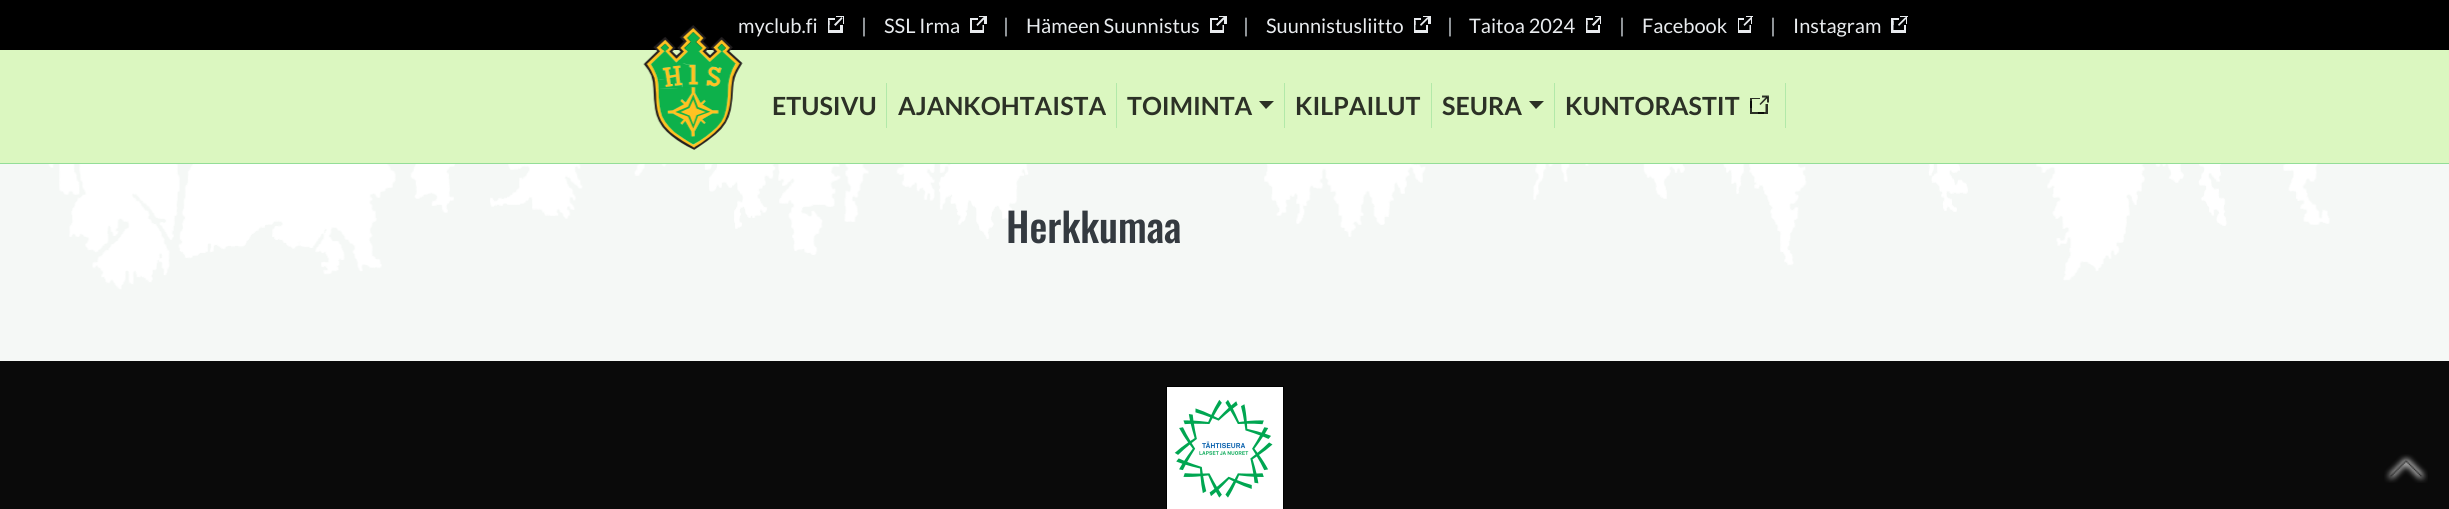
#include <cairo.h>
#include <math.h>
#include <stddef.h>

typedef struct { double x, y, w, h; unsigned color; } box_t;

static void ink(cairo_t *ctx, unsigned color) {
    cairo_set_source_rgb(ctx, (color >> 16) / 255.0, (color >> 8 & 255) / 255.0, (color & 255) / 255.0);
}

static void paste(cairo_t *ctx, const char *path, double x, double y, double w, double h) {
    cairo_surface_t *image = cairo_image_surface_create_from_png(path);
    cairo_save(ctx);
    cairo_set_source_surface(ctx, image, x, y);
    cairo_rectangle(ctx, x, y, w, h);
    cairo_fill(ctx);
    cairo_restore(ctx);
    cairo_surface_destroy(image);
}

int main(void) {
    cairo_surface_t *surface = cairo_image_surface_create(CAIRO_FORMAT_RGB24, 2449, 509);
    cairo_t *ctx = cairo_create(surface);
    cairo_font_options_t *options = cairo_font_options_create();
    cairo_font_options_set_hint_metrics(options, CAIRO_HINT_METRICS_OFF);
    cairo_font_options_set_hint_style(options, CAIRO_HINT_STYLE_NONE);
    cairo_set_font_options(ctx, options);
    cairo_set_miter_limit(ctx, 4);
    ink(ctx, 0xFFFFFF);
    cairo_paint(ctx);
    paste(ctx, "media/1.png", 0, 164, 2449, 197);
    {
        static const box_t items[] = {
            {0, 50, 2449, 113, 0xDBF7C0},
            {0, 163, 2449, 1, 0x93DE97},
            {0, 0, 2449, 50, 0x000000},
        };
        for (size_t i = 0; i < sizeof items / sizeof *items; i++) {
            ink(ctx, items[i].color);
            cairo_rectangle(ctx, items[i].x, items[i].y, items[i].w, items[i].h);
            cairo_fill(ctx);
        }
    }
    cairo_select_font_face(ctx, "Lato", CAIRO_FONT_SLANT_NORMAL, CAIRO_FONT_WEIGHT_NORMAL);
    cairo_set_font_size(ctx, 20);
    ink(ctx, 0xE9ECEF);
    cairo_move_to(ctx, 738, 33);
    cairo_show_text(ctx, "myclub.fi");
    cairo_new_path(ctx);
    cairo_move_to(ctx, 835, 30);
    cairo_line_to(ctx, 835, 33);
    cairo_line_to(ctx, 843, 33);
    cairo_line_to(ctx, 843, 25);
    cairo_line_to(ctx, 840, 25);
    cairo_line_to(ctx, 840, 30);
    cairo_close_path(ctx);
    cairo_move_to(ctx, 828, 18);
    cairo_line_to(ctx, 828, 25);
    cairo_line_to(ctx, 829.5, 25);
    cairo_line_to(ctx, 829.5, 20);
    cairo_line_to(ctx, 835, 20);
    cairo_line_to(ctx, 835, 18);
    cairo_close_path(ctx);
    cairo_fill(ctx);
    cairo_new_path(ctx);
    cairo_move_to(ctx, 828, 21);
    cairo_line_to(ctx, 828, 33);
    cairo_line_to(ctx, 839, 33);
    cairo_line_to(ctx, 839, 30);
    cairo_line_to(ctx, 829.5, 30);
    cairo_line_to(ctx, 829.5, 21);
    cairo_close_path(ctx);
    cairo_fill(ctx);
    cairo_rectangle(ctx, 836, 16, 8, 1);
    cairo_fill(ctx);
    cairo_rectangle(ctx, 843, 16, 1, 8);
    cairo_fill(ctx);
    cairo_new_path(ctx);
    cairo_move_to(ctx, 834, 24.5);
    cairo_line_to(ctx, 841.5, 17);
    cairo_line_to(ctx, 842.5, 18.5);
    cairo_line_to(ctx, 835.5, 26);
    cairo_close_path(ctx);
    cairo_fill(ctx);
    ink(ctx, 0xCED4DA);
    cairo_move_to(ctx, 861, 33);
    cairo_show_text(ctx, "|");
    ink(ctx, 0xE9ECEF);
    cairo_move_to(ctx, 884, 33);
    cairo_show_text(ctx, "SSL Irma");
    cairo_new_path(ctx);
    cairo_move_to(ctx, 978, 30);
    cairo_line_to(ctx, 978, 33);
    cairo_line_to(ctx, 984, 33);
    cairo_line_to(ctx, 984, 25);
    cairo_line_to(ctx, 982.5, 25);
    cairo_line_to(ctx, 982.5, 30);
    cairo_close_path(ctx);
    cairo_move_to(ctx, 970, 18);
    cairo_line_to(ctx, 970, 25);
    cairo_line_to(ctx, 972, 25);
    cairo_line_to(ctx, 972, 20);
    cairo_line_to(ctx, 978, 20);
    cairo_line_to(ctx, 978, 18);
    cairo_close_path(ctx);
    cairo_fill(ctx);
    cairo_new_path(ctx);
    cairo_move_to(ctx, 970, 21);
    cairo_line_to(ctx, 970, 33);
    cairo_line_to(ctx, 981, 33);
    cairo_line_to(ctx, 981, 30);
    cairo_line_to(ctx, 972, 30);
    cairo_line_to(ctx, 972, 21);
    cairo_close_path(ctx);
    cairo_fill(ctx);
    cairo_rectangle(ctx, 979, 16, 7, 1);
    cairo_fill(ctx);
    cairo_new_path(ctx);
    cairo_move_to(ctx, 976.5, 24.5);
    cairo_line_to(ctx, 983.5, 17);
    cairo_line_to(ctx, 985, 18.5);
    cairo_line_to(ctx, 977.5, 26);
    cairo_close_path(ctx);
    cairo_fill(ctx);
    cairo_rectangle(ctx, 984, 16, 3, 8);
    cairo_fill(ctx);
    ink(ctx, 0xCED4DA);
    cairo_move_to(ctx, 1003, 33);
    cairo_show_text(ctx, "|");
    ink(ctx, 0xE9ECEF);
    cairo_move_to(ctx, 1026, 33);
    cairo_show_text(ctx, "Hämeen Suunnistus");
    cairo_new_path(ctx);
    cairo_move_to(ctx, 1218, 30);
    cairo_line_to(ctx, 1218, 33);
    cairo_line_to(ctx, 1224, 33);
    cairo_line_to(ctx, 1224, 25);
    cairo_line_to(ctx, 1222.5, 25);
    cairo_line_to(ctx, 1222.5, 30);
    cairo_close_path(ctx);
    cairo_move_to(ctx, 1210, 18);
    cairo_line_to(ctx, 1210, 25);
    cairo_line_to(ctx, 1212, 25);
    cairo_line_to(ctx, 1212, 20);
    cairo_line_to(ctx, 1218, 20);
    cairo_line_to(ctx, 1218, 18);
    cairo_close_path(ctx);
    cairo_fill(ctx);
    cairo_new_path(ctx);
    cairo_move_to(ctx, 1210, 21);
    cairo_line_to(ctx, 1210, 33);
    cairo_line_to(ctx, 1220, 33);
    cairo_line_to(ctx, 1220, 30);
    cairo_line_to(ctx, 1212, 30);
    cairo_line_to(ctx, 1212, 21);
    cairo_close_path(ctx);
    cairo_fill(ctx);
    cairo_rectangle(ctx, 1219, 16, 7, 1);
    cairo_fill(ctx);
    cairo_new_path(ctx);
    cairo_move_to(ctx, 1216, 24.5);
    cairo_line_to(ctx, 1223.5, 17);
    cairo_line_to(ctx, 1225, 18.5);
    cairo_line_to(ctx, 1217.5, 26);
    cairo_close_path(ctx);
    cairo_fill(ctx);
    cairo_rectangle(ctx, 1224, 16, 3, 8);
    cairo_fill(ctx);
    ink(ctx, 0xCED4DA);
    cairo_move_to(ctx, 1243, 33);
    cairo_show_text(ctx, "|");
    ink(ctx, 0xE9ECEF);
    cairo_move_to(ctx, 1266, 33);
    cairo_show_text(ctx, "Suunnistusliitto");
    cairo_new_path(ctx);
    cairo_move_to(ctx, 1421, 30);
    cairo_line_to(ctx, 1421, 33);
    cairo_line_to(ctx, 1428, 33);
    cairo_line_to(ctx, 1428, 25);
    cairo_line_to(ctx, 1426, 25);
    cairo_line_to(ctx, 1426, 30);
    cairo_close_path(ctx);
    cairo_move_to(ctx, 1414, 18);
    cairo_line_to(ctx, 1414, 25);
    cairo_line_to(ctx, 1415.5, 25);
    cairo_line_to(ctx, 1415.5, 20);
    cairo_line_to(ctx, 1421, 20);
    cairo_line_to(ctx, 1421, 18);
    cairo_close_path(ctx);
    cairo_fill(ctx);
    cairo_new_path(ctx);
    cairo_move_to(ctx, 1414, 21);
    cairo_line_to(ctx, 1414, 33);
    cairo_line_to(ctx, 1424, 33);
    cairo_line_to(ctx, 1424, 30);
    cairo_line_to(ctx, 1415.5, 30);
    cairo_line_to(ctx, 1415.5, 21);
    cairo_close_path(ctx);
    cairo_fill(ctx);
    cairo_rectangle(ctx, 1423, 16, 7, 1);
    cairo_fill(ctx);
    cairo_new_path(ctx);
    cairo_move_to(ctx, 1420, 24.5);
    cairo_line_to(ctx, 1427.5, 17);
    cairo_line_to(ctx, 1428.5, 18.5);
    cairo_line_to(ctx, 1421, 26);
    cairo_close_path(ctx);
    cairo_fill(ctx);
    cairo_rectangle(ctx, 1428, 16, 3, 8);
    cairo_fill(ctx);
    ink(ctx, 0xCED4DA);
    cairo_move_to(ctx, 1447, 33);
    cairo_show_text(ctx, "|");
    ink(ctx, 0xE9ECEF);
    cairo_move_to(ctx, 1469, 33);
    cairo_show_text(ctx, "Taitoa 2024");
    cairo_new_path(ctx);
    cairo_move_to(ctx, 1593, 30);
    cairo_line_to(ctx, 1593, 33);
    cairo_line_to(ctx, 1600, 33);
    cairo_line_to(ctx, 1600, 25);
    cairo_line_to(ctx, 1598, 25);
    cairo_line_to(ctx, 1598, 30);
    cairo_close_path(ctx);
    cairo_move_to(ctx, 1586, 18);
    cairo_line_to(ctx, 1586, 25);
    cairo_line_to(ctx, 1587.5, 25);
    cairo_line_to(ctx, 1587.5, 20);
    cairo_line_to(ctx, 1593, 20);
    cairo_line_to(ctx, 1593, 18);
    cairo_close_path(ctx);
    cairo_fill(ctx);
    cairo_new_path(ctx);
    cairo_move_to(ctx, 1586, 21);
    cairo_line_to(ctx, 1586, 33);
    cairo_line_to(ctx, 1596, 33);
    cairo_line_to(ctx, 1596, 30);
    cairo_line_to(ctx, 1587.5, 30);
    cairo_line_to(ctx, 1587.5, 21);
    cairo_close_path(ctx);
    cairo_fill(ctx);
    cairo_rectangle(ctx, 1595, 16, 6, 1);
    cairo_fill(ctx);
    cairo_new_path(ctx);
    cairo_move_to(ctx, 1592, 24.5);
    cairo_line_to(ctx, 1599.5, 17);
    cairo_line_to(ctx, 1600.5, 18.5);
    cairo_line_to(ctx, 1593.5, 26);
    cairo_close_path(ctx);
    cairo_fill(ctx);
    cairo_rectangle(ctx, 1600, 16, 1, 8);
    cairo_fill(ctx);
    ink(ctx, 0xCED4DA);
    cairo_move_to(ctx, 1619, 33);
    cairo_show_text(ctx, "|");
    ink(ctx, 0xE9ECEF);
    cairo_move_to(ctx, 1642, 33);
    cairo_show_text(ctx, "Facebook");
    cairo_new_path(ctx);
    cairo_move_to(ctx, 1744, 30);
    cairo_line_to(ctx, 1744, 33);
    cairo_line_to(ctx, 1751, 33);
    cairo_line_to(ctx, 1751, 25);
    cairo_line_to(ctx, 1749.5, 25);
    cairo_line_to(ctx, 1749.5, 30);
    cairo_close_path(ctx);
    cairo_move_to(ctx, 1738, 18);
    cairo_line_to(ctx, 1738, 25);
    cairo_line_to(ctx, 1739, 25);
    cairo_line_to(ctx, 1739, 20);
    cairo_line_to(ctx, 1744, 20);
    cairo_line_to(ctx, 1744, 18);
    cairo_close_path(ctx);
    cairo_fill(ctx);
    cairo_new_path(ctx);
    cairo_move_to(ctx, 1738, 21);
    cairo_line_to(ctx, 1738, 33);
    cairo_line_to(ctx, 1748, 33);
    cairo_line_to(ctx, 1748, 30);
    cairo_line_to(ctx, 1739, 30);
    cairo_line_to(ctx, 1739, 21);
    cairo_close_path(ctx);
    cairo_fill(ctx);
    cairo_rectangle(ctx, 1746, 16, 7, 1);
    cairo_fill(ctx);
    cairo_new_path(ctx);
    cairo_move_to(ctx, 1743.5, 24.5);
    cairo_line_to(ctx, 1751, 17);
    cairo_line_to(ctx, 1752, 18.5);
    cairo_line_to(ctx, 1744.5, 26);
    cairo_close_path(ctx);
    cairo_fill(ctx);
    cairo_rectangle(ctx, 1751, 16, 1, 8);
    cairo_fill(ctx);
    ink(ctx, 0xCED4DA);
    cairo_move_to(ctx, 1770, 33);
    cairo_show_text(ctx, "|");
    ink(ctx, 0xE9ECEF);
    cairo_move_to(ctx, 1793, 33);
    cairo_show_text(ctx, "Instagram");
    cairo_new_path(ctx);
    cairo_move_to(ctx, 1899, 30);
    cairo_line_to(ctx, 1899, 33);
    cairo_line_to(ctx, 1906, 33);
    cairo_line_to(ctx, 1906, 25);
    cairo_line_to(ctx, 1904, 25);
    cairo_line_to(ctx, 1904, 30);
    cairo_close_path(ctx);
    cairo_move_to(ctx, 1891, 18);
    cairo_line_to(ctx, 1891, 25);
    cairo_line_to(ctx, 1893.5, 25);
    cairo_line_to(ctx, 1893.5, 20);
    cairo_line_to(ctx, 1899, 20);
    cairo_line_to(ctx, 1899, 18);
    cairo_close_path(ctx);
    cairo_fill(ctx);
    cairo_new_path(ctx);
    cairo_move_to(ctx, 1891, 21);
    cairo_line_to(ctx, 1891, 33);
    cairo_line_to(ctx, 1903, 33);
    cairo_line_to(ctx, 1903, 30);
    cairo_line_to(ctx, 1893.5, 30);
    cairo_line_to(ctx, 1893.5, 21);
    cairo_close_path(ctx);
    cairo_fill(ctx);
    cairo_rectangle(ctx, 1900, 16, 8, 1);
    cairo_fill(ctx);
    cairo_new_path(ctx);
    cairo_move_to(ctx, 1898, 24.5);
    cairo_line_to(ctx, 1905.5, 17);
    cairo_line_to(ctx, 1906.5, 18.5);
    cairo_line_to(ctx, 1899, 26);
    cairo_close_path(ctx);
    cairo_fill(ctx);
    cairo_rectangle(ctx, 1906, 16, 1, 8);
    cairo_fill(ctx);
    paste(ctx, "media/2.png", 643, 25, 100, 125);
    ink(ctx, 0xB2E9A9);
    cairo_rectangle(ctx, 886, 83, 1, 45);
    cairo_fill(ctx);
    cairo_select_font_face(ctx, "Lato", CAIRO_FONT_SLANT_NORMAL, CAIRO_FONT_WEIGHT_BOLD);
    cairo_set_font_size(ctx, 25);
    ink(ctx, 0x2C3126);
    cairo_move_to(ctx, 772, 115);
    cairo_show_text(ctx, "ETUSIVU");
    ink(ctx, 0xB2E9A9);
    cairo_rectangle(ctx, 1116, 83, 1, 45);
    cairo_fill(ctx);
    ink(ctx, 0x2C3126);
    cairo_move_to(ctx, 898, 115);
    cairo_show_text(ctx, "AJANKOHTAISTA");
    ink(ctx, 0xB2E9A9);
    cairo_rectangle(ctx, 1284, 83, 1, 45);
    cairo_fill(ctx);
    ink(ctx, 0x2C3126);
    cairo_move_to(ctx, 1127, 115);
    cairo_show_text(ctx, "TOIMINTA");
    cairo_new_path(ctx);
    cairo_move_to(ctx, 1259, 101);
    cairo_line_to(ctx, 1274, 101);
    cairo_line_to(ctx, 1266, 109);
    cairo_close_path(ctx);
    cairo_fill(ctx);
    ink(ctx, 0xB2E9A9);
    cairo_rectangle(ctx, 1431, 83, 1, 45);
    cairo_fill(ctx);
    ink(ctx, 0x2C3126);
    cairo_move_to(ctx, 1295, 115);
    cairo_show_text(ctx, "KILPAILUT");
    ink(ctx, 0xB2E9A9);
    cairo_rectangle(ctx, 1554, 83, 1, 45);
    cairo_fill(ctx);
    ink(ctx, 0x2C3126);
    cairo_move_to(ctx, 1442, 115);
    cairo_show_text(ctx, "SEURA");
    cairo_new_path(ctx);
    cairo_move_to(ctx, 1529, 101);
    cairo_line_to(ctx, 1544, 101);
    cairo_line_to(ctx, 1536, 109);
    cairo_close_path(ctx);
    cairo_fill(ctx);
    ink(ctx, 0xB2E9A9);
    cairo_rectangle(ctx, 1785, 83, 1, 45);
    cairo_fill(ctx);
    ink(ctx, 0x2C3126);
    cairo_move_to(ctx, 1565, 115);
    cairo_show_text(ctx, "KUNTORASTIT");
    cairo_new_path(ctx);
    cairo_move_to(ctx, 1758, 112);
    cairo_line_to(ctx, 1758, 114);
    cairo_line_to(ctx, 1768, 114);
    cairo_line_to(ctx, 1768, 104);
    cairo_line_to(ctx, 1765.5, 104);
    cairo_line_to(ctx, 1765.5, 112);
    cairo_close_path(ctx);
    cairo_fill(ctx);
    cairo_new_path(ctx);
    cairo_move_to(ctx, 1750, 98);
    cairo_line_to(ctx, 1750, 108);
    cairo_line_to(ctx, 1752, 108);
    cairo_line_to(ctx, 1752, 99);
    cairo_line_to(ctx, 1760, 99);
    cairo_line_to(ctx, 1760, 98);
    cairo_close_path(ctx);
    cairo_fill(ctx);
    cairo_set_source_rgba(ctx, 0, 0, 0, 0.8);
    cairo_new_path(ctx);
    cairo_move_to(ctx, 1750, 101);
    cairo_line_to(ctx, 1750, 114);
    cairo_line_to(ctx, 1764, 114);
    cairo_line_to(ctx, 1764, 112);
    cairo_line_to(ctx, 1752, 112);
    cairo_line_to(ctx, 1752, 101);
    cairo_close_path(ctx);
    cairo_fill(ctx);
    ink(ctx, 0x2C3126);
    cairo_new_path(ctx);
    cairo_move_to(ctx, 1759.5, 104);
    cairo_line_to(ctx, 1766.5, 96.5);
    cairo_line_to(ctx, 1768, 97.5);
    cairo_line_to(ctx, 1760.5, 105);
    cairo_close_path(ctx);
    cairo_fill(ctx);
    cairo_set_source_rgba(ctx, 0, 0, 0, 0.8);
    cairo_new_path(ctx);
    cairo_move_to(ctx, 1762, 95.5);
    cairo_line_to(ctx, 1769, 95.5);
    cairo_line_to(ctx, 1767, 97.5);
    cairo_line_to(ctx, 1762, 97.5);
    cairo_close_path(ctx);
    cairo_fill(ctx);
    cairo_new_path(ctx);
    cairo_move_to(ctx, 1769, 95.5);
    cairo_line_to(ctx, 1769, 102.5);
    cairo_line_to(ctx, 1767, 102.5);
    cairo_line_to(ctx, 1767, 97.5);
    cairo_close_path(ctx);
    cairo_fill(ctx);
    cairo_select_font_face(ctx, "Oswald Medium", CAIRO_FONT_SLANT_NORMAL, CAIRO_FONT_WEIGHT_NORMAL);
    cairo_set_font_size(ctx, 40);
    ink(ctx, 0x343A40);
    cairo_move_to(ctx, 1006, 243);
    cairo_show_text(ctx, "Herkkumaa");
    ink(ctx, 0x0A0A0A);
    cairo_rectangle(ctx, 0, 361, 2449, 148);
    cairo_fill(ctx);
    paste(ctx, "media/3.png", 1166, 386, 118, 123);
    paste(ctx, "media/4.png", 2384, 454, 44, 29);
    cairo_surface_write_to_png(surface, "image.png");
    cairo_font_options_destroy(options);
    cairo_destroy(ctx);
    cairo_surface_destroy(surface);
    return 0;
}
